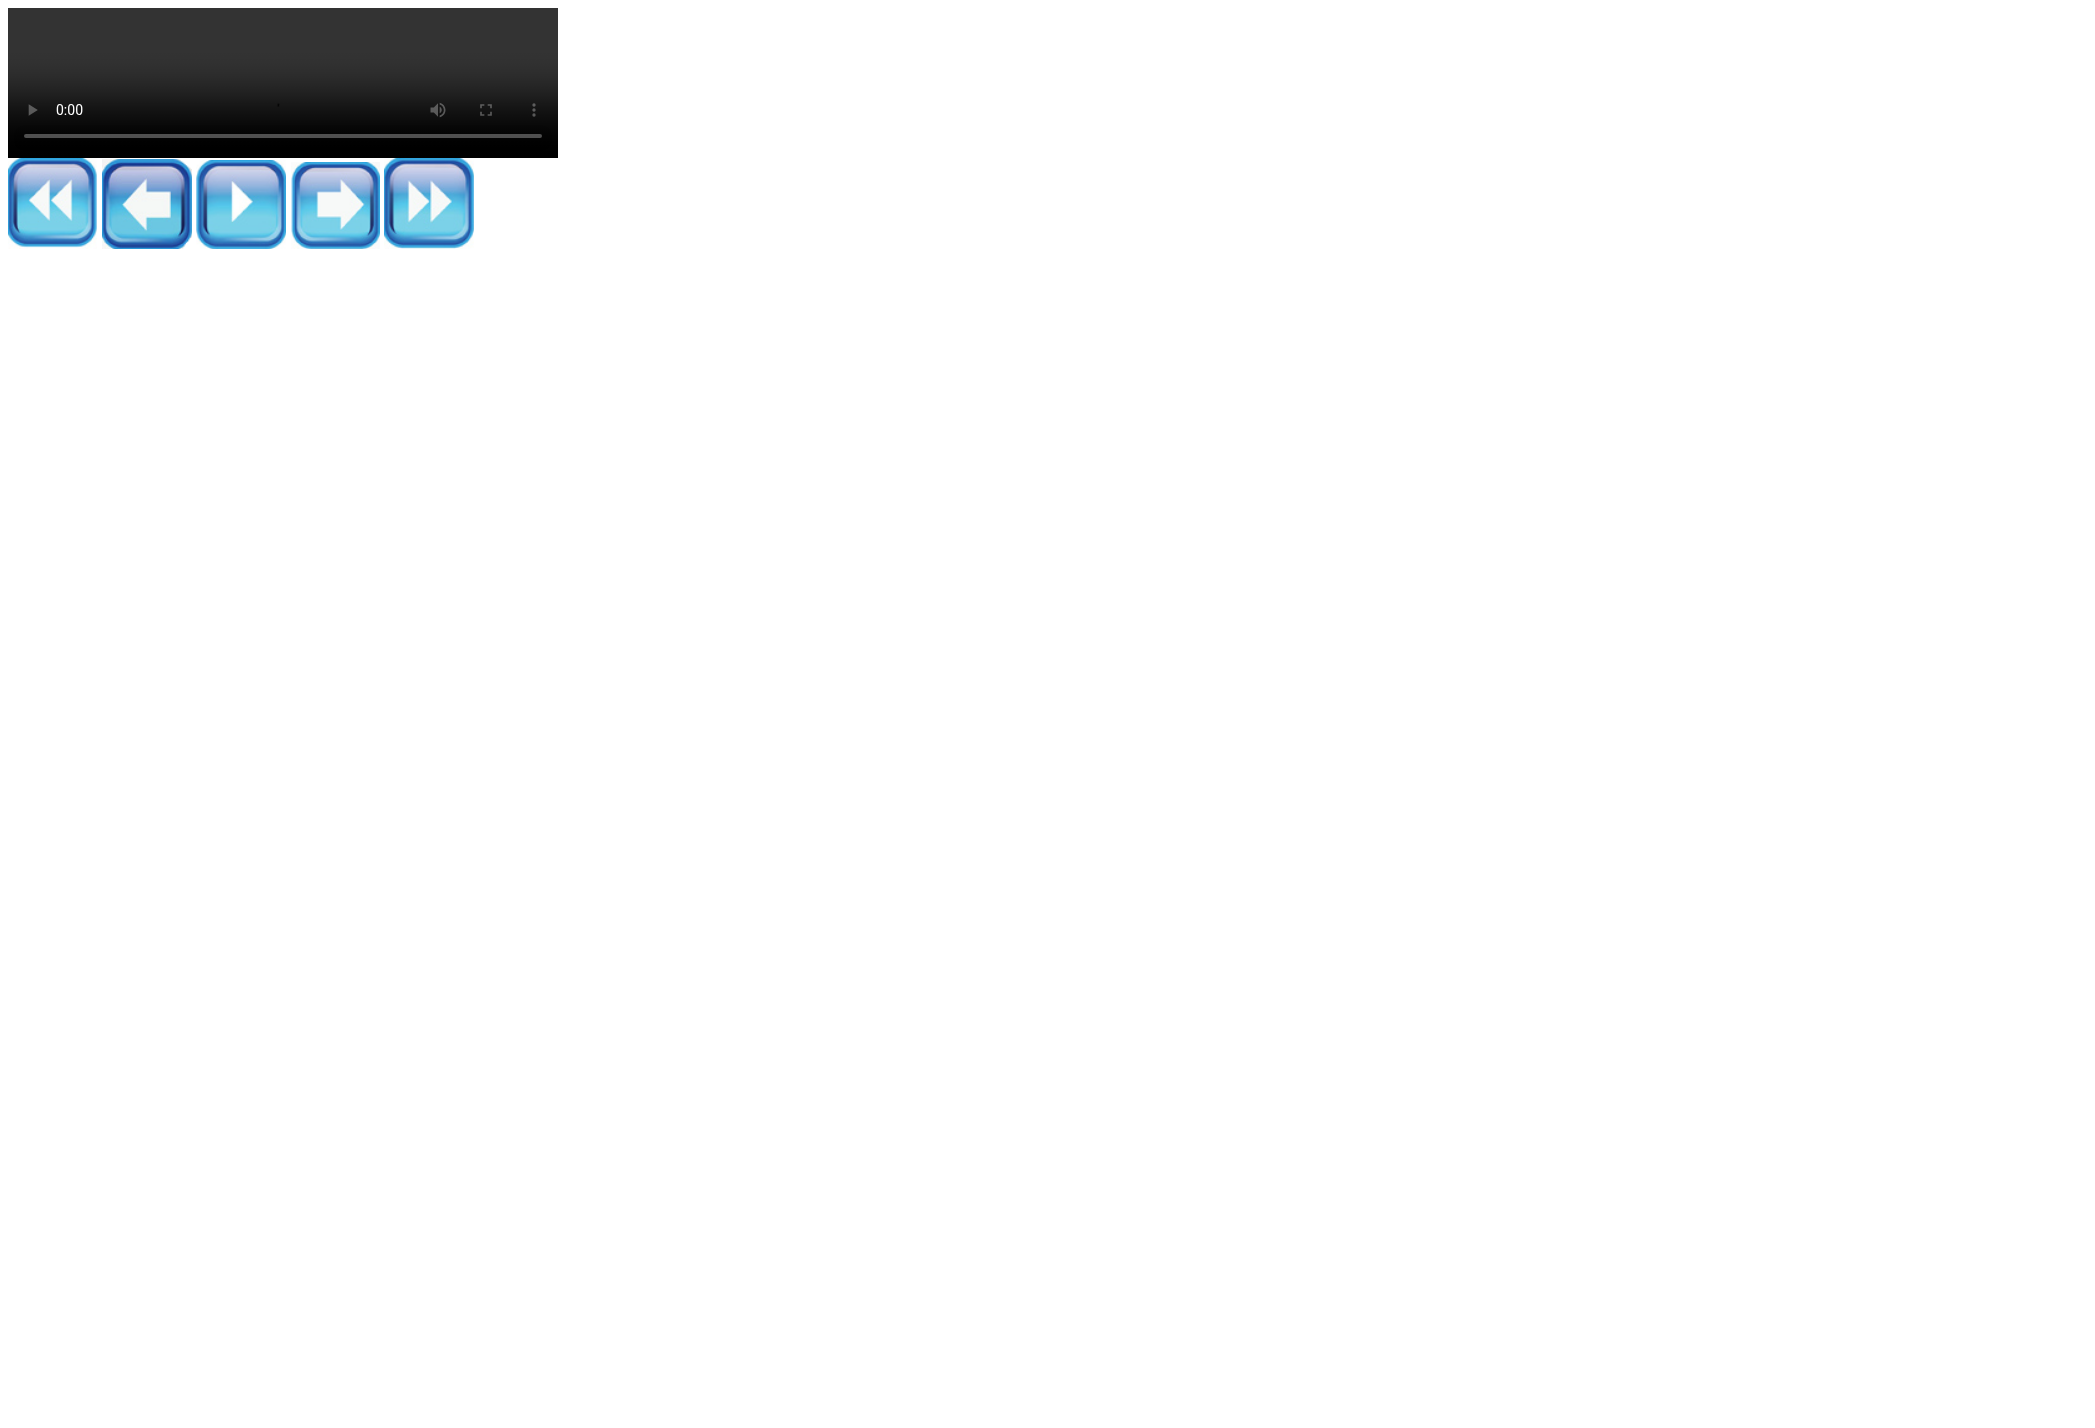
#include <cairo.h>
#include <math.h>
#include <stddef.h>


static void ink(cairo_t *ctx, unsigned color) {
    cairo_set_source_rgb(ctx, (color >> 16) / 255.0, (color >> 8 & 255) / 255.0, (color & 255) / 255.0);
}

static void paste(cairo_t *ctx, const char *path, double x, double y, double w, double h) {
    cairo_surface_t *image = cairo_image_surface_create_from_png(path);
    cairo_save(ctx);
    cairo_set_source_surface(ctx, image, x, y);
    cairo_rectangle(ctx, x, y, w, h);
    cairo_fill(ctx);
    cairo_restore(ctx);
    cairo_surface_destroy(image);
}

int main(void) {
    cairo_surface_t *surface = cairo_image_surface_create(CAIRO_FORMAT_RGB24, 2095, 1428);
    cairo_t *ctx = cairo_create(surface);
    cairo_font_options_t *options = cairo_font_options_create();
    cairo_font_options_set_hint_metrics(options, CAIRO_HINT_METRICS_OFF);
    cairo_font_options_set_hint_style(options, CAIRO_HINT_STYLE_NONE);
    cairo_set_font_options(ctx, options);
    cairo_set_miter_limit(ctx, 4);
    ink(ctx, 0xFFFFFF);
    cairo_paint(ctx);
    paste(ctx, "media/1.png", 8, 8, 550, 150);
    paste(ctx, "media/2.png", 8, 158, 89, 91);
    paste(ctx, "media/3.png", 102, 159, 90, 90);
    paste(ctx, "media/4.png", 196, 160, 90, 89);
    paste(ctx, "media/5.png", 291, 162, 89, 87);
    paste(ctx, "media/6.png", 384, 158, 90, 91);
    cairo_surface_write_to_png(surface, "image.png");
    cairo_font_options_destroy(options);
    cairo_destroy(ctx);
    cairo_surface_destroy(surface);
    return 0;
}
